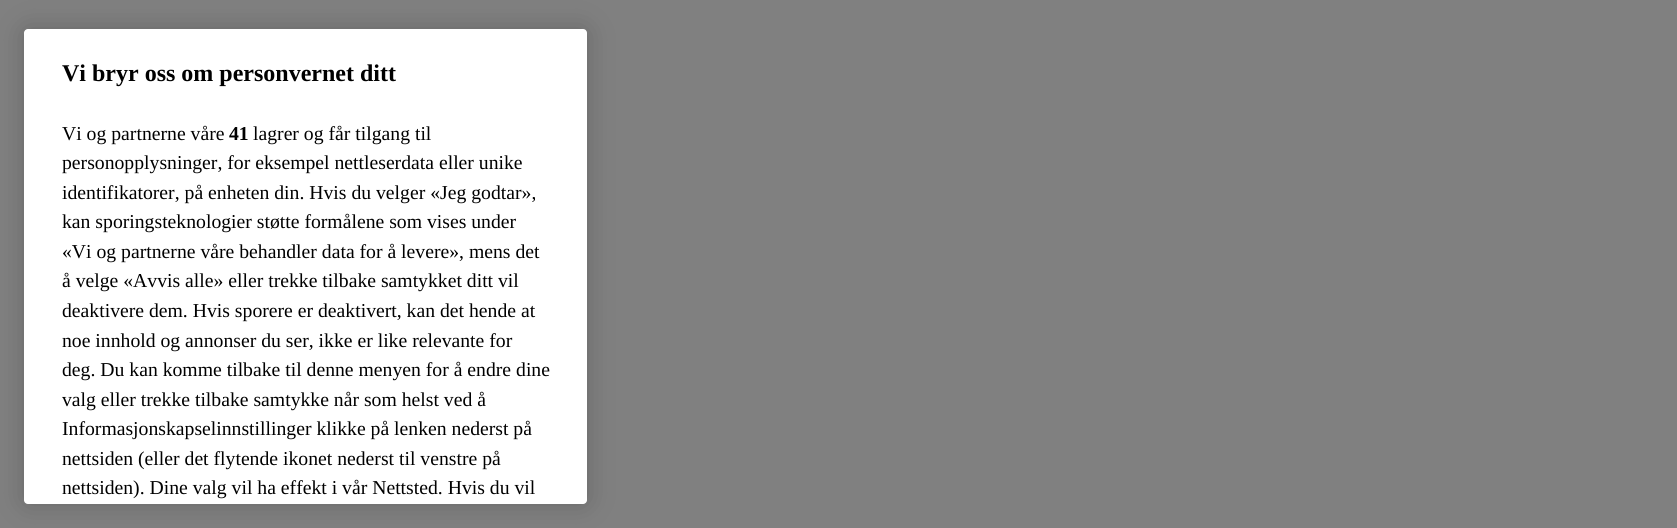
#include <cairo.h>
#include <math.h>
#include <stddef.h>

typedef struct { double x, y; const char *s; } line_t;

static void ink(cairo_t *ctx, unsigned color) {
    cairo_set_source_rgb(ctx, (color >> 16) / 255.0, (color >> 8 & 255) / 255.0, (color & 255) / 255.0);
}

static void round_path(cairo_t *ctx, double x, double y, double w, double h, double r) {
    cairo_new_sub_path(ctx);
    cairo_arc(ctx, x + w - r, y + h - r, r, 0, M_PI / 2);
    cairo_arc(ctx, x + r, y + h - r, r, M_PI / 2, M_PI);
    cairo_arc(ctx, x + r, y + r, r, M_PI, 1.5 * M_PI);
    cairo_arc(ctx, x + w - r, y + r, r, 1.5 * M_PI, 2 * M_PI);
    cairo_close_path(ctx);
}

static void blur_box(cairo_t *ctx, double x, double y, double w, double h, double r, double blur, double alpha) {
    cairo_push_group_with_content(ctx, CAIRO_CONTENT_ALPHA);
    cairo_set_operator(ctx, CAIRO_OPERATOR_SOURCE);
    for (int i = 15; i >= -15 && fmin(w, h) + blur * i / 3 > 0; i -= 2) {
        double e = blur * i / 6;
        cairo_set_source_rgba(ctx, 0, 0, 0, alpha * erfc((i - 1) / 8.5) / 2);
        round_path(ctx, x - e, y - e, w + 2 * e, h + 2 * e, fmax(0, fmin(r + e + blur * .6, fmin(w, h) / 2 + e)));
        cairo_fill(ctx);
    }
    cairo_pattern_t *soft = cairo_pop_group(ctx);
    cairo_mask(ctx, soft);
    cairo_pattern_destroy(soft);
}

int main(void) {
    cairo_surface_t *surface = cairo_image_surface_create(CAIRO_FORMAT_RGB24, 1677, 528);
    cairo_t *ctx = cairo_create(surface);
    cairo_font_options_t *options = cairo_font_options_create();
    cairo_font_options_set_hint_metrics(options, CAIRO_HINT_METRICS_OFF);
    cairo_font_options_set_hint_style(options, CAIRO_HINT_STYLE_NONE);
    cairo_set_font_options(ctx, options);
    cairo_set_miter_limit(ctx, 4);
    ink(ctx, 0x808080);
    cairo_paint(ctx);
    ink(ctx, 0x000000);
    blur_box(ctx, 24, 29, 563, 475, 4, 13.5, 0.2);
    ink(ctx, 0xFFFFFF);
    round_path(ctx, 24, 29, 563, 475, 4);
    cairo_fill(ctx);
    cairo_select_font_face(ctx, "Liberation Serif", CAIRO_FONT_SLANT_NORMAL, CAIRO_FONT_WEIGHT_BOLD);
    cairo_set_font_size(ctx, 24);
    ink(ctx, 0x000000);
    cairo_move_to(ctx, 62, 81);
    cairo_show_text(ctx, "Vi bryr oss om personvernet ditt");
    cairo_select_font_face(ctx, "Liberation Serif", CAIRO_FONT_SLANT_NORMAL, CAIRO_FONT_WEIGHT_NORMAL);
    cairo_set_font_size(ctx, 19.7);
    cairo_move_to(ctx, 62, 140);
    cairo_show_text(ctx, "Vi og partnerne våre");
    cairo_select_font_face(ctx, "Liberation Serif", CAIRO_FONT_SLANT_NORMAL, CAIRO_FONT_WEIGHT_BOLD);
    cairo_move_to(ctx, 229, 140);
    cairo_show_text(ctx, "41");
    cairo_select_font_face(ctx, "Liberation Serif", CAIRO_FONT_SLANT_NORMAL, CAIRO_FONT_WEIGHT_NORMAL);
    {
        static const line_t items[] = {
            {253, 140, "lagrer og får tilgang til"},
            {62, 169, "personopplysninger, for eksempel nettleserdata eller unike"},
            {62, 199, "identifikatorer, på enheten din. Hvis du velger «Jeg godtar»,"},
            {62, 228, "kan sporingsteknologier støtte formålene som vises under"},
            {62, 258, "«Vi og partnerne våre behandler data for å levere», mens det"},
            {62, 287, "å velge «Avvis alle» eller trekke tilbake samtykket ditt vil"},
            {62, 317, "deaktivere dem. Hvis sporere er deaktivert, kan det hende at"},
            {62, 347, "noe innhold og annonser du ser, ikke er like relevante for"},
            {62, 376, "deg. Du kan komme tilbake til denne menyen for å endre dine"},
            {62, 406, "valg eller trekke tilbake samtykke når som helst ved å"},
            {62, 435, "Informasjonskapselinnstillinger klikke på lenken nederst på"},
            {62, 465, "nettsiden (eller det flytende ikonet nederst til venstre på"},
            {62, 494, "nettsiden). Dine valg vil ha effekt i vår Nettsted. Hvis du vil"},
        };
        for (size_t i = 0; i < sizeof items / sizeof *items; i++) {
            cairo_move_to(ctx, items[i].x, items[i].y);
            cairo_show_text(ctx, items[i].s);
        }
    }
    cairo_surface_write_to_png(surface, "image.png");
    cairo_font_options_destroy(options);
    cairo_destroy(ctx);
    cairo_surface_destroy(surface);
    return 0;
}
